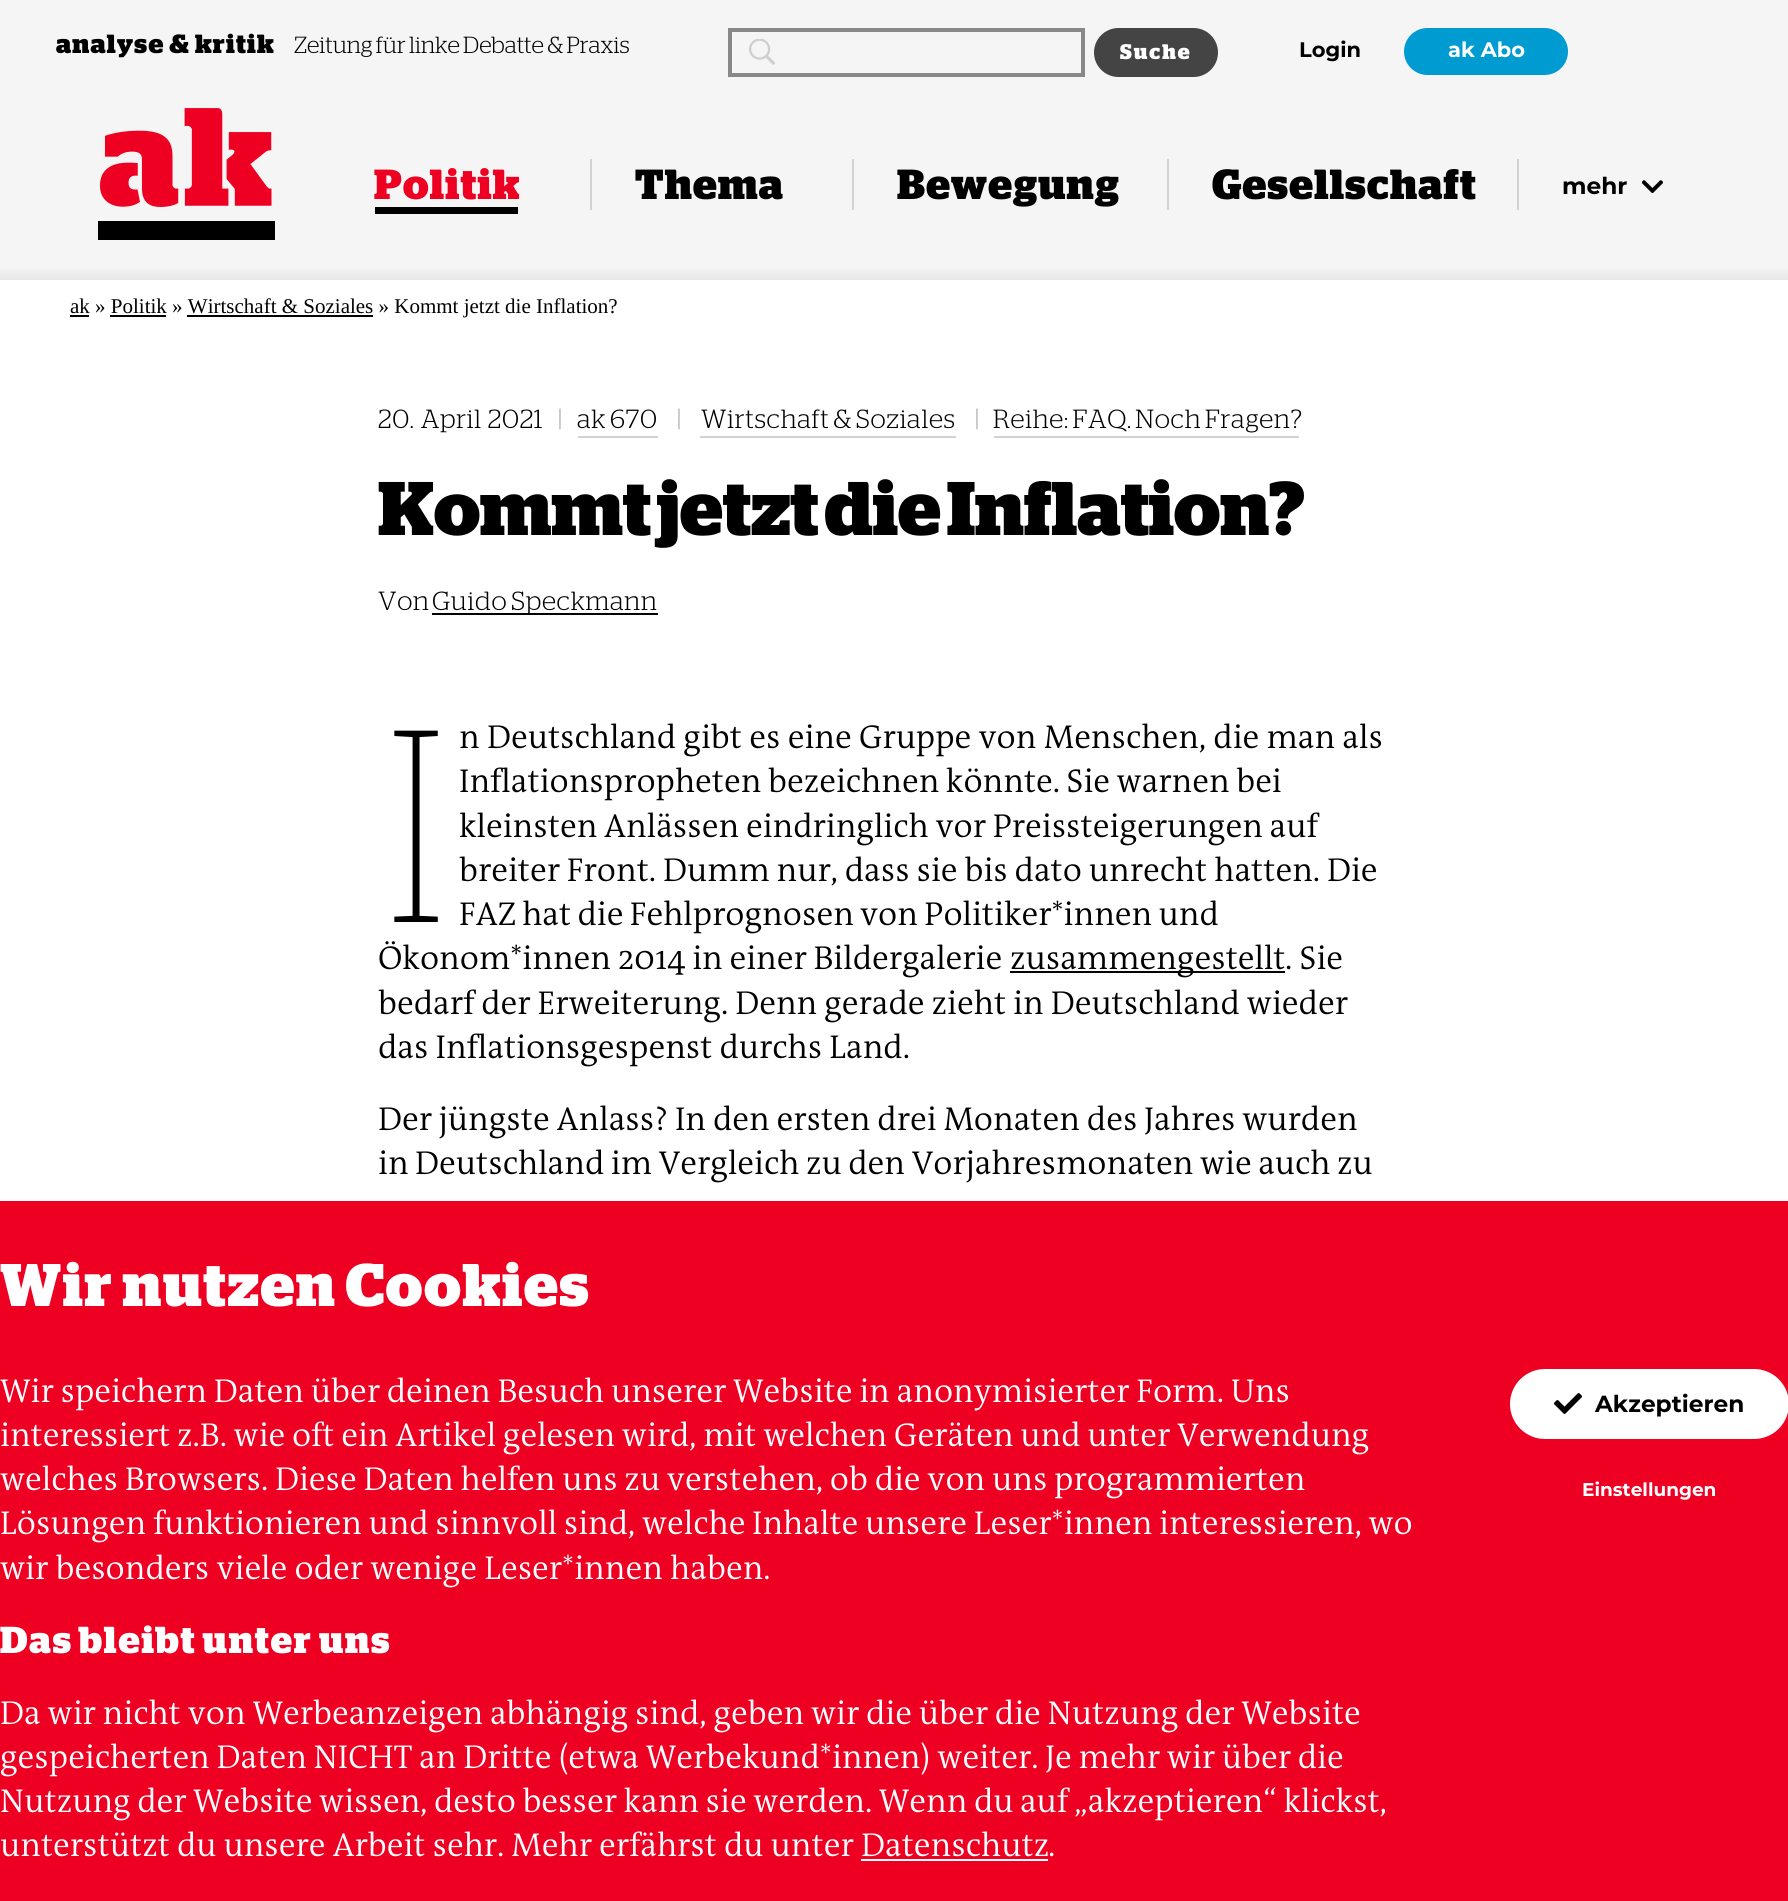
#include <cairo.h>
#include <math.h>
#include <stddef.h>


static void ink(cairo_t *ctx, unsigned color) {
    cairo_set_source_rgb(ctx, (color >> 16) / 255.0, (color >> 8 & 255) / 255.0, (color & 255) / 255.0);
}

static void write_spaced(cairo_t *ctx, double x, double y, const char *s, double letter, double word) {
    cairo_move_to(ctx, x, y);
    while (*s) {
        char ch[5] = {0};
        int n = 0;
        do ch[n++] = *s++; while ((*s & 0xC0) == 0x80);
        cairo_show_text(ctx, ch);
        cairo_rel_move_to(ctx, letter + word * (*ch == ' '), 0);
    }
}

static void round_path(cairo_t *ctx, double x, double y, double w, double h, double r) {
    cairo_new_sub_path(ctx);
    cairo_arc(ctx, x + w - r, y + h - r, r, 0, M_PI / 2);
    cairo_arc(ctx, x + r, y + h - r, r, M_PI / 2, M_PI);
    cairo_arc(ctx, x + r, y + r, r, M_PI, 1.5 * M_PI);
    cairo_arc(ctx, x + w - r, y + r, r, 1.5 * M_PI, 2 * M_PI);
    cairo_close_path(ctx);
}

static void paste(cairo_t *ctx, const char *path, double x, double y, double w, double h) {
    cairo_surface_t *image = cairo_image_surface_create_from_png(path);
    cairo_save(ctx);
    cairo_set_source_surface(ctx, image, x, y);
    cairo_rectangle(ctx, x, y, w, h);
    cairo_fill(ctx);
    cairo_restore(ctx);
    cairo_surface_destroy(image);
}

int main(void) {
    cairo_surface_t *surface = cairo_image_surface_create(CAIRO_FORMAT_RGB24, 1788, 1901);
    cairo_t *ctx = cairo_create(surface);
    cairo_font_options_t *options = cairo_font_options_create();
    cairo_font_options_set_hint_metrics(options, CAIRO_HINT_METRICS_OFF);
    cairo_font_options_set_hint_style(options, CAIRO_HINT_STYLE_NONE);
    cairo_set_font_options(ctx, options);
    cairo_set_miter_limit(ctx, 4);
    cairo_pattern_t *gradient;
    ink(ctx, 0xFFFFFF);
    cairo_paint(ctx);
    ink(ctx, 0xF5F5F5);
    cairo_rectangle(ctx, 0, 0, 1788, 91);
    cairo_fill(ctx);
    cairo_select_font_face(ctx, "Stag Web", CAIRO_FONT_SLANT_NORMAL, CAIRO_FONT_WEIGHT_BOLD);
    cairo_set_font_size(ctx, 26.25);
    ink(ctx, 0x000000);
    write_spaced(ctx, 56, 53, "analyse & kritik", 1.25, 0);
    cairo_select_font_face(ctx, "Stag Web Light", CAIRO_FONT_SLANT_NORMAL, CAIRO_FONT_WEIGHT_NORMAL);
    cairo_set_font_size(ctx, 23.3);
    write_spaced(ctx, 294, 53, "Zeitung für linke Debatte & Praxis", 0, -0.5);
    paste(ctx, "media/1.png", 749, 39, 26, 26);
    cairo_rectangle(ctx, 730, 30, 353, 45);
    ink(ctx, 0x888888);
    cairo_set_line_width(ctx, 4);
    cairo_stroke(ctx);
    ink(ctx, 0x444444);
    round_path(ctx, 1094, 28, 124, 49, 24.5);
    cairo_fill(ctx);
    cairo_select_font_face(ctx, "Stag Web", CAIRO_FONT_SLANT_NORMAL, CAIRO_FONT_WEIGHT_BOLD);
    cairo_set_font_size(ctx, 21);
    ink(ctx, 0xFFFFFF);
    write_spaced(ctx, 1120, 59, "Suche", 2, 0);
    cairo_select_font_face(ctx, "Montserrat", CAIRO_FONT_SLANT_NORMAL, CAIRO_FONT_WEIGHT_BOLD);
    ink(ctx, 0x000000);
    cairo_move_to(ctx, 1299, 57);
    cairo_show_text(ctx, "Login");
    ink(ctx, 0x009BD1);
    round_path(ctx, 1404, 28, 164, 47, 23.5);
    cairo_fill(ctx);
    ink(ctx, 0xFFFFFF);
    cairo_move_to(ctx, 1448, 57);
    cairo_show_text(ctx, "ak Abo");
    gradient = cairo_pattern_create_linear(894, 280, 894, 91);
    cairo_pattern_add_color_stop_rgba(gradient, 0, 0.902, 0.902, 0.902, 1);
    cairo_pattern_add_color_stop_rgba(gradient, 0.07, 0.961, 0.961, 0.961, 1);
    cairo_set_source(ctx, gradient);
    cairo_pattern_destroy(gradient);
    cairo_rectangle(ctx, 0, 91, 1788, 189);
    cairo_fill(ctx);
    paste(ctx, "media/2.png", 99, 108, 173, 99);
    ink(ctx, 0x000000);
    cairo_rectangle(ctx, 98, 221, 177, 19);
    cairo_fill(ctx);
    ink(ctx, 0xD2D2D2);
    cairo_rectangle(ctx, 590, 159, 2, 51);
    cairo_fill(ctx);
    cairo_select_font_face(ctx, "Stag Web", CAIRO_FONT_SLANT_NORMAL, CAIRO_FONT_WEIGHT_BOLD);
    cairo_set_font_size(ctx, 42);
    ink(ctx, 0xEE0022);
    write_spaced(ctx, 374, 199, "Politik", 1.25, 0);
    ink(ctx, 0x000000);
    cairo_rectangle(ctx, 375, 207, 143, 7);
    cairo_fill(ctx);
    ink(ctx, 0xD2D2D2);
    cairo_rectangle(ctx, 852, 159, 2, 51);
    cairo_fill(ctx);
    ink(ctx, 0x000000);
    write_spaced(ctx, 635, 199, "Thema", 1.25, 0);
    ink(ctx, 0xD2D2D2);
    cairo_rectangle(ctx, 1167, 159, 2, 51);
    cairo_fill(ctx);
    ink(ctx, 0x000000);
    write_spaced(ctx, 897, 199, "Bewegung", 1.25, 0);
    ink(ctx, 0xD2D2D2);
    cairo_rectangle(ctx, 1517, 159, 2, 51);
    cairo_fill(ctx);
    ink(ctx, 0x000000);
    write_spaced(ctx, 1212, 199, "Gesellschaft", 1.25, 0);
    cairo_select_font_face(ctx, "Montserrat", CAIRO_FONT_SLANT_NORMAL, CAIRO_FONT_WEIGHT_BOLD);
    cairo_set_font_size(ctx, 23.3);
    cairo_move_to(ctx, 1562, 194);
    cairo_show_text(ctx, "mehr");
    paste(ctx, "media/3.png", 1642, 180, 21, 13);
    cairo_rectangle(ctx, 70, 315, 19, 2);
    cairo_fill(ctx);
    cairo_select_font_face(ctx, "Liberation Serif", CAIRO_FONT_SLANT_NORMAL, CAIRO_FONT_WEIGHT_NORMAL);
    cairo_set_font_size(ctx, 21);
    cairo_move_to(ctx, 70, 313);
    cairo_show_text(ctx, "ak » Politik » Wirtschaft & Soziales » Kommt jetzt die Inflation?");
    cairo_rectangle(ctx, 110, 315, 56, 2);
    cairo_fill(ctx);
    cairo_rectangle(ctx, 187, 315, 186, 2);
    cairo_fill(ctx);
    cairo_select_font_face(ctx, "Stag Web Light", CAIRO_FONT_SLANT_NORMAL, CAIRO_FONT_WEIGHT_NORMAL);
    cairo_set_font_size(ctx, 26.25);
    write_spaced(ctx, 378, 428, "20. April 2021", 0.75, 1);
    ink(ctx, 0xB0AFAF);
    write_spaced(ctx, 558, 428, "|", 0.75, 0);
    ink(ctx, 0x000000);
    write_spaced(ctx, 577, 428, "ak 670", 0.75, -1);
    ink(ctx, 0xD2D2D2);
    cairo_rectangle(ctx, 578, 436, 80, 2);
    cairo_fill(ctx);
    ink(ctx, 0xB0AFAF);
    write_spaced(ctx, 677, 428, "|", 0.75, 0);
    ink(ctx, 0x000000);
    write_spaced(ctx, 701, 428, "Wirtschaft & Soziales", 0.75, -1);
    ink(ctx, 0xD2D2D2);
    cairo_rectangle(ctx, 700, 436, 256, 2);
    cairo_fill(ctx);
    ink(ctx, 0xB0AFAF);
    write_spaced(ctx, 975, 428, "|", 0.75, 0);
    ink(ctx, 0x000000);
    write_spaced(ctx, 993, 428, "Reihe: FAQ. Noch Fragen?", 0.75, -1.5);
    ink(ctx, 0xD2D2D2);
    cairo_rectangle(ctx, 994, 436, 305, 2);
    cairo_fill(ctx);
    cairo_select_font_face(ctx, "Stag Web", CAIRO_FONT_SLANT_NORMAL, CAIRO_FONT_WEIGHT_BOLD);
    cairo_set_font_size(ctx, 75.75);
    ink(ctx, 0x000000);
    write_spaced(ctx, 378, 535, "Kommt jetzt die Inflation?", 0, -4.5);
    cairo_select_font_face(ctx, "Stag Web Light", CAIRO_FONT_SLANT_NORMAL, CAIRO_FONT_WEIGHT_NORMAL);
    cairo_set_font_size(ctx, 26.25);
    write_spaced(ctx, 378, 610, "Von", 0.75, 0);
    cairo_rectangle(ctx, 432, 613, 226, 2);
    cairo_fill(ctx);
    write_spaced(ctx, 432, 610, "Guido Speckmann", 0.75, -1);
    cairo_select_font_face(ctx, "Noto Sans Thin", CAIRO_FONT_SLANT_NORMAL, CAIRO_FONT_WEIGHT_NORMAL);
    cairo_set_font_size(ctx, 268);
    cairo_move_to(ctx, 378, 922);
    cairo_show_text(ctx, "I");
    cairo_select_font_face(ctx, "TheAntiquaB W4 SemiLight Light", CAIRO_FONT_SLANT_NORMAL, CAIRO_FONT_WEIGHT_NORMAL);
    cairo_set_font_size(ctx, 33.25);
    cairo_move_to(ctx, 459, 748);
    cairo_show_text(ctx, "n Deutschland gibt es eine Gruppe von Menschen, die man als");
    write_spaced(ctx, 459, 792, "Inflationspropheten bezeichnen könnte. Sie warnen bei", 0, -0.75);
    write_spaced(ctx, 459, 837, "kleinsten Anlässen eindringlich vor Preissteigerungen auf", 0, -0.5);
    write_spaced(ctx, 459, 881, "breiter Front. Dumm nur, dass sie bis dato unrecht hatten. Die", 0, -0.4);
    write_spaced(ctx, 459, 925, "FAZ hat die Fehlprognosen von Politiker*innen und", 0, -1);
    write_spaced(ctx, 378, 969, "Ökonom*innen 2014 in einer Bildergalerie", 0, -0.5);
    cairo_rectangle(ctx, 1010, 971, 275, 2);
    cairo_fill(ctx);
    cairo_move_to(ctx, 1010, 969);
    cairo_show_text(ctx, "zusammengestellt");
    cairo_move_to(ctx, 1285, 969);
    cairo_show_text(ctx, ". Sie");
    write_spaced(ctx, 378, 1014, "bedarf der Erweiterung. Denn gerade zieht in Deutschland wieder", 0, -0.25);
    write_spaced(ctx, 378, 1058, "das Inflationsgespenst durchs Land.", 0, -0.25);
    write_spaced(ctx, 378, 1130, "Der jüngste Anlass? In den ersten drei Monaten des Jahres wurden", 0, -0.4);
    write_spaced(ctx, 378, 1174, "in Deutschland im Vergleich zu den Vorjahresmonaten wie auch zu", 0, -0.75);
    ink(ctx, 0xEE0022);
    cairo_rectangle(ctx, 0, 1201, 1788, 700);
    cairo_fill(ctx);
    cairo_select_font_face(ctx, "Stag Web", CAIRO_FONT_SLANT_NORMAL, CAIRO_FONT_WEIGHT_BOLD);
    cairo_set_font_size(ctx, 60);
    ink(ctx, 0xFFFFFF);
    write_spaced(ctx, 0, 1306, "Wir nutzen Cookies", 1.75, -1);
    cairo_select_font_face(ctx, "TheAntiquaB W4 SemiLight Light", CAIRO_FONT_SLANT_NORMAL, CAIRO_FONT_WEIGHT_NORMAL);
    cairo_set_font_size(ctx, 33.25);
    write_spaced(ctx, 0, 1402, "Wir speichern Daten über deinen Besuch unserer Website in anonymisierter Form. Uns", 0, -0.5);
    write_spaced(ctx, 0, 1446, "interessiert z.B. wie oft ein Artikel gelesen wird, mit welchen Geräten und unter Verwendung", 0, -0.6);
    write_spaced(ctx, 0, 1490, "welches Browsers. Diese Daten helfen uns zu verstehen, ob die von uns programmierten", 0, -0.5);
    write_spaced(ctx, 0, 1534, "Lösungen funktionieren und sinnvoll sind, welche Inhalte unsere Leser*innen interessieren, wo", 0, -0.6);
    cairo_move_to(ctx, 0, 1579);
    cairo_show_text(ctx, "wir besonders viele oder wenige Leser*innen haben.");
    cairo_select_font_face(ctx, "Stag Web", CAIRO_FONT_SLANT_NORMAL, CAIRO_FONT_WEIGHT_BOLD);
    cairo_set_font_size(ctx, 37.5);
    write_spaced(ctx, 0, 1653, "Das bleibt unter uns", 1.9, -0.75);
    cairo_select_font_face(ctx, "TheAntiquaB W4 SemiLight Light", CAIRO_FONT_SLANT_NORMAL, CAIRO_FONT_WEIGHT_NORMAL);
    cairo_set_font_size(ctx, 33.25);
    write_spaced(ctx, 0, 1724, "Da wir nicht von Werbeanzeigen abhängig sind, geben wir die über die Nutzung der Website", 0, -0.4);
    write_spaced(ctx, 0, 1768, "gespeicherten Daten NICHT an Dritte (etwa Werbekund*innen) weiter. Je mehr wir über die", 0, -0.5);
    write_spaced(ctx, 0, 1812, "Nutzung der Website wissen, desto besser kann sie werden. Wenn du auf „akzeptieren“ klickst,", 0, -0.75);
    write_spaced(ctx, 0, 1856, "unterstützt du unsere Arbeit sehr. Mehr erfährst du unter", 0, -0.25);
    cairo_move_to(ctx, 861, 1856);
    cairo_show_text(ctx, "Datenschutz");
    cairo_rectangle(ctx, 861, 1859, 187, 2);
    cairo_fill(ctx);
    cairo_move_to(ctx, 1048, 1856);
    cairo_show_text(ctx, ".");
    round_path(ctx, 1510, 1369, 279, 70, 35);
    cairo_fill(ctx);
    paste(ctx, "media/4.png", 1554, 1393, 28, 21);
    cairo_select_font_face(ctx, "Montserrat", CAIRO_FONT_SLANT_NORMAL, CAIRO_FONT_WEIGHT_BOLD);
    cairo_set_font_size(ctx, 23.3);
    ink(ctx, 0x000000);
    cairo_move_to(ctx, 1595, 1412);
    cairo_show_text(ctx, "Akzeptieren");
    cairo_set_font_size(ctx, 18.5);
    ink(ctx, 0xFFFFFF);
    cairo_move_to(ctx, 1582, 1496);
    cairo_show_text(ctx, "Einstellungen");
    cairo_surface_write_to_png(surface, "image.png");
    cairo_font_options_destroy(options);
    cairo_destroy(ctx);
    cairo_surface_destroy(surface);
    return 0;
}
